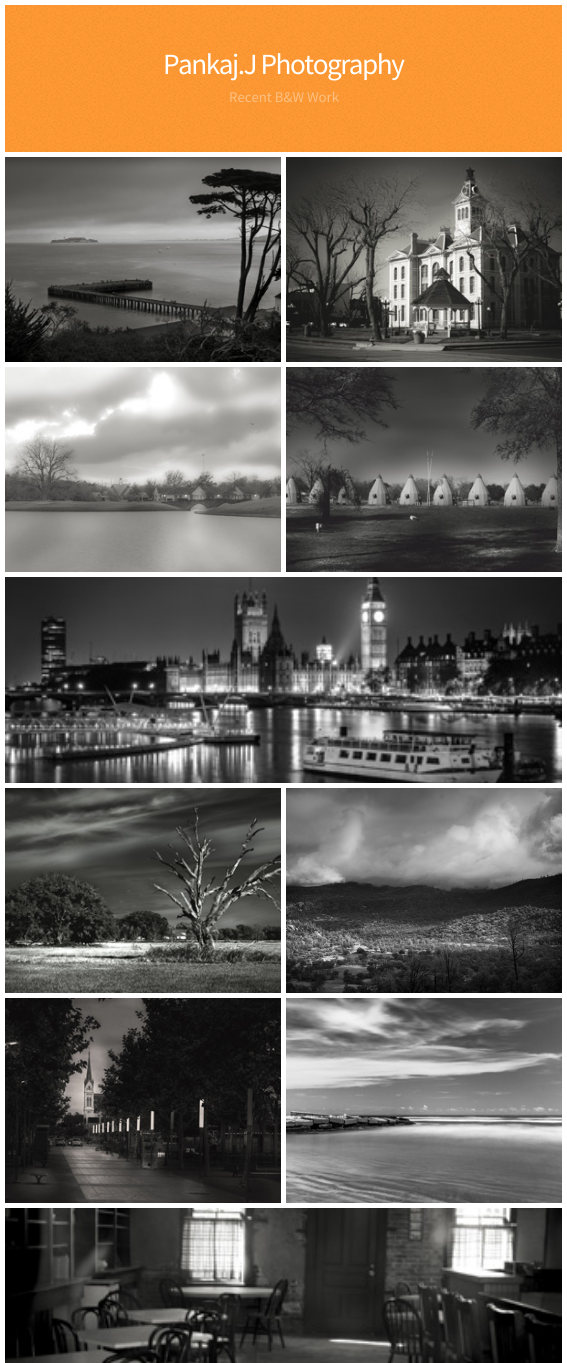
#include <cairo.h>
#include <math.h>
#include <stddef.h>


static void ink(cairo_t *ctx, unsigned color) {
    cairo_set_source_rgb(ctx, (color >> 16) / 255.0, (color >> 8 & 255) / 255.0, (color & 255) / 255.0);
}

static void write_spaced(cairo_t *ctx, double x, double y, const char *s, double letter, double word) {
    cairo_move_to(ctx, x, y);
    while (*s) {
        char ch[5] = {0};
        int n = 0;
        do ch[n++] = *s++; while ((*s & 0xC0) == 0x80);
        cairo_show_text(ctx, ch);
        cairo_rel_move_to(ctx, letter + word * (*ch == ' '), 0);
    }
}

static void paste(cairo_t *ctx, const char *path, double x, double y, double w, double h) {
    cairo_surface_t *image = cairo_image_surface_create_from_png(path);
    cairo_save(ctx);
    cairo_set_source_surface(ctx, image, x, y);
    cairo_rectangle(ctx, x, y, w, h);
    cairo_fill(ctx);
    cairo_restore(ctx);
    cairo_surface_destroy(image);
}

int main(void) {
    cairo_surface_t *surface = cairo_image_surface_create(CAIRO_FORMAT_RGB24, 567, 1363);
    cairo_t *ctx = cairo_create(surface);
    cairo_font_options_t *options = cairo_font_options_create();
    cairo_font_options_set_hint_metrics(options, CAIRO_HINT_METRICS_OFF);
    cairo_font_options_set_hint_style(options, CAIRO_HINT_STYLE_NONE);
    cairo_set_font_options(ctx, options);
    cairo_set_miter_limit(ctx, 4);
    ink(ctx, 0xFFFFFF);
    cairo_paint(ctx);
    ink(ctx, 0xFF9933);
    cairo_rectangle(ctx, 5, 5, 557, 147);
    cairo_fill(ctx);
    paste(ctx, "media/1.png", 5, 5, 557, 147);
    cairo_select_font_face(ctx, "Source Sans Pro", CAIRO_FONT_SLANT_NORMAL, CAIRO_FONT_WEIGHT_NORMAL);
    cairo_set_font_size(ctx, 29.25);
    ink(ctx, 0xFFFFFF);
    write_spaced(ctx, 163, 74, "Pankaj.J Photography", -1.5, 0);
    cairo_set_font_size(ctx, 14.75);
    ink(ctx, 0xFDC082);
    cairo_move_to(ctx, 229, 102);
    cairo_show_text(ctx, "Recent B&W Work");
    paste(ctx, "media/2.png", 5, 157, 276, 205);
    paste(ctx, "media/3.png", 286, 157, 276, 205);
    paste(ctx, "media/4.png", 5, 367, 276, 205);
    paste(ctx, "media/5.png", 286, 367, 276, 205);
    paste(ctx, "media/6.png", 5, 577, 557, 206);
    paste(ctx, "media/7.png", 5, 788, 276, 205);
    paste(ctx, "media/8.png", 286, 788, 276, 205);
    paste(ctx, "media/9.png", 5, 998, 276, 205);
    paste(ctx, "media/10.png", 286, 998, 276, 205);
    paste(ctx, "media/11.png", 5, 1208, 557, 155);
    cairo_surface_write_to_png(surface, "image.png");
    cairo_font_options_destroy(options);
    cairo_destroy(ctx);
    cairo_surface_destroy(surface);
    return 0;
}
